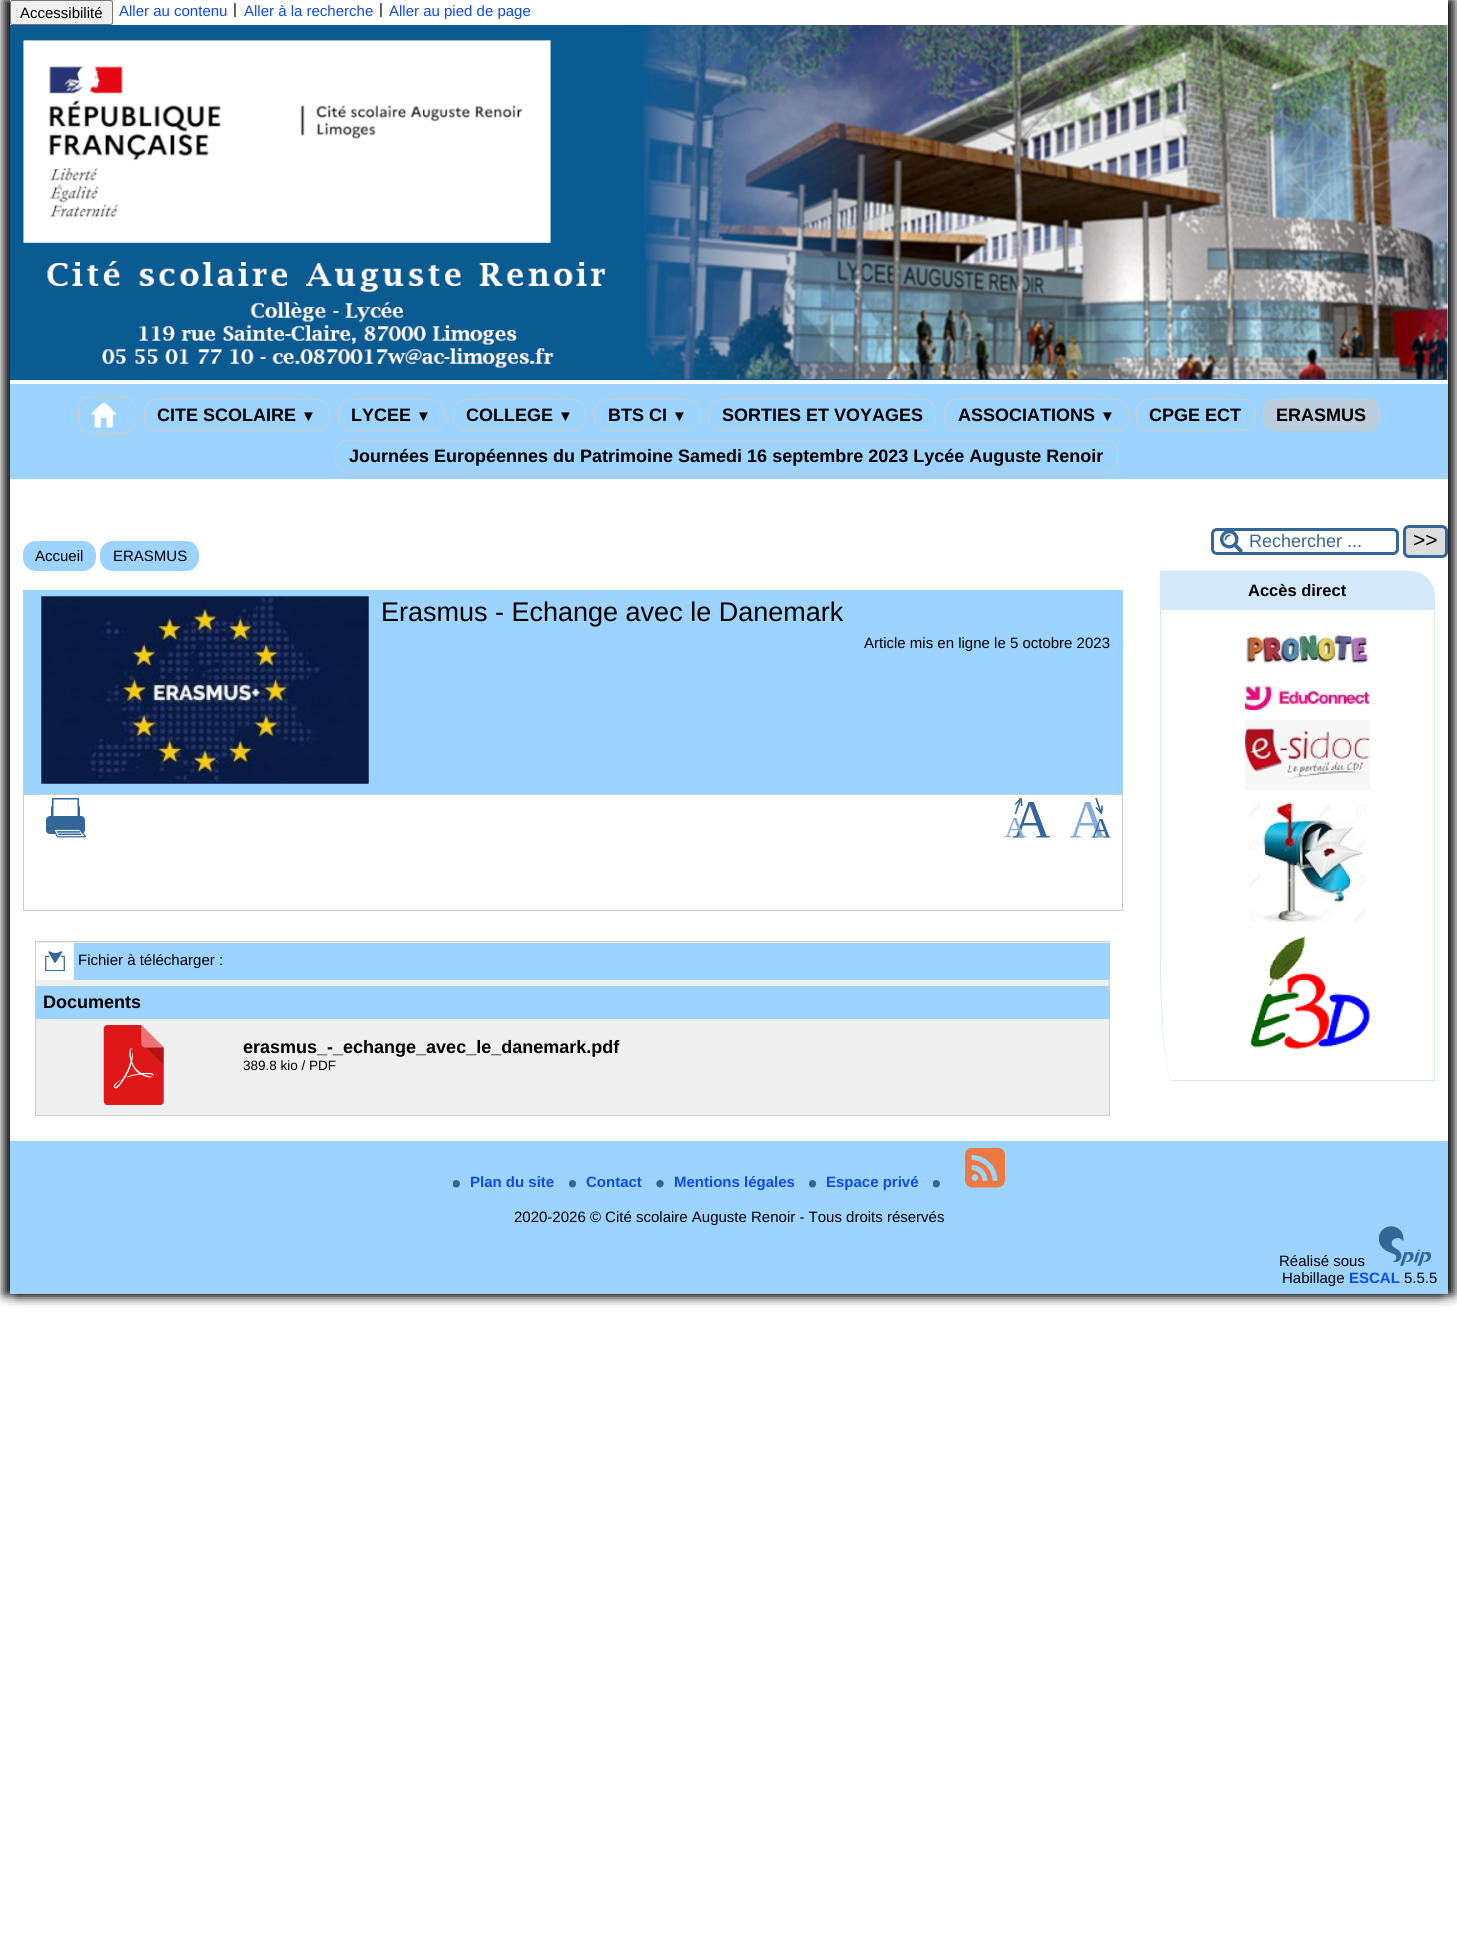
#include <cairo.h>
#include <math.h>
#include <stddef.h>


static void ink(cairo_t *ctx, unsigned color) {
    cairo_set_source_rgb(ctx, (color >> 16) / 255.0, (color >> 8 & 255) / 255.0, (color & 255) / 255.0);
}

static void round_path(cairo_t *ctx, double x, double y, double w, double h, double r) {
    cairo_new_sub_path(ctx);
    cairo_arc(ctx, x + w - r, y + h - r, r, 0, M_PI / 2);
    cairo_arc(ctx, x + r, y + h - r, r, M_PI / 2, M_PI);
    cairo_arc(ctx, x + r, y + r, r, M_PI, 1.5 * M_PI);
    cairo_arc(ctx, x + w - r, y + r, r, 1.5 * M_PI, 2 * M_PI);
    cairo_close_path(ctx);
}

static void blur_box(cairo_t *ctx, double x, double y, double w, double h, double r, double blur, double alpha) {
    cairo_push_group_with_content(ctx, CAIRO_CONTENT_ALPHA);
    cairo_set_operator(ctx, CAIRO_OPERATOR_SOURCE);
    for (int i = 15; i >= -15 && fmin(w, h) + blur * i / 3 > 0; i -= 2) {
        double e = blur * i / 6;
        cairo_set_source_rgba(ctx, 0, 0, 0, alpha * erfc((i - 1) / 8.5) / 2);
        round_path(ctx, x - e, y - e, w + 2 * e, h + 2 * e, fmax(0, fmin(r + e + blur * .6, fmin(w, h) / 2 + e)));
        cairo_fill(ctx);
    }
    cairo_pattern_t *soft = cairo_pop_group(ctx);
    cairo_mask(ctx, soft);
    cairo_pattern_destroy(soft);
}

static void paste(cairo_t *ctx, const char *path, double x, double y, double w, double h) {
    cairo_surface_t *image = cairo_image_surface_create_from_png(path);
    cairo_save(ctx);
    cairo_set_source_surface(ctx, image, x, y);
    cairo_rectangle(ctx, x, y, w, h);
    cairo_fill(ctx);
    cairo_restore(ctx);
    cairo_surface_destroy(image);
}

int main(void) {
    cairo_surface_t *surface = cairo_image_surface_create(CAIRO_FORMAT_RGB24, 1457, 1951);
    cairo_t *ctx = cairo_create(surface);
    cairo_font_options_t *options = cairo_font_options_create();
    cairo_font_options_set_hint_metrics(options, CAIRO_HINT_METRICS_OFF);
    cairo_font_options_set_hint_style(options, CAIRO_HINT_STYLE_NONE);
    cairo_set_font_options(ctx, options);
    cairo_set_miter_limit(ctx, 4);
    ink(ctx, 0xFFFFFF);
    cairo_paint(ctx);
    ink(ctx, 0x000000);
    blur_box(ctx, 4, 0, 1437, 1294, 0, 6, 1);
    blur_box(ctx, 16, 0, 1438, 1294, 0, 6, 1);
    ink(ctx, 0xFFFFFF);
    cairo_rectangle(ctx, 10, 0, 1438, 1141);
    cairo_fill(ctx);
    ink(ctx, 0xEFEFEF);
    round_path(ctx, 10.5, 0.5, 102, 24, 2);
    cairo_fill_preserve(ctx);
    ink(ctx, 0x767676);
    cairo_set_line_width(ctx, 1);
    cairo_stroke(ctx);
    cairo_select_font_face(ctx, "Liberation Sans", CAIRO_FONT_SLANT_NORMAL, CAIRO_FONT_WEIGHT_NORMAL);
    cairo_set_font_size(ctx, 15);
    ink(ctx, 0x000000);
    cairo_move_to(ctx, 20, 18);
    cairo_show_text(ctx, "Accessibilité");
    ink(ctx, 0x0E4BEF);
    cairo_move_to(ctx, 119, 16);
    cairo_show_text(ctx, "Aller au contenu");
    ink(ctx, 0x000000);
    cairo_move_to(ctx, 233, 14);
    cairo_show_text(ctx, "|");
    ink(ctx, 0x0E4BEF);
    cairo_move_to(ctx, 244, 16);
    cairo_show_text(ctx, "Aller à la recherche");
    ink(ctx, 0x000000);
    cairo_move_to(ctx, 379, 14);
    cairo_show_text(ctx, "|");
    ink(ctx, 0x0E4BEF);
    cairo_move_to(ctx, 389, 16);
    cairo_show_text(ctx, "Aller au pied de page");
    paste(ctx, "media/1.png", 10, 25, 1438, 355);
    ink(ctx, 0x9DD4FF);
    cairo_rectangle(ctx, 10, 384, 1438, 95);
    cairo_fill(ctx);
    round_path(ctx, 78.5, 396.5, 57, 37, 12.5);
    ink(ctx, 0xCCCCCC);
    cairo_stroke(ctx);
    paste(ctx, "media/2.png", 91, 403, 25, 25);
    round_path(ctx, 144.5, 399.5, 185, 31, 12.5);
    cairo_stroke(ctx);
    cairo_select_font_face(ctx, "Liberation Sans", CAIRO_FONT_SLANT_NORMAL, CAIRO_FONT_WEIGHT_BOLD);
    cairo_set_font_size(ctx, 18);
    ink(ctx, 0x000000);
    cairo_move_to(ctx, 157, 421);
    cairo_show_text(ctx, "CITE SCOLAIRE");
    cairo_set_font_size(ctx, 15);
    cairo_move_to(ctx, 301, 421);
    cairo_show_text(ctx, "▼");
    round_path(ctx, 338.5, 399.5, 106, 31, 12.5);
    ink(ctx, 0xCCCCCC);
    cairo_stroke(ctx);
    cairo_set_font_size(ctx, 18);
    ink(ctx, 0x000000);
    cairo_move_to(ctx, 351, 421);
    cairo_show_text(ctx, "LYCEE");
    cairo_set_font_size(ctx, 15);
    cairo_move_to(ctx, 416, 421);
    cairo_show_text(ctx, "▼");
    round_path(ctx, 453.5, 399.5, 132, 31, 12.5);
    ink(ctx, 0xCCCCCC);
    cairo_stroke(ctx);
    cairo_set_font_size(ctx, 18);
    ink(ctx, 0x000000);
    cairo_move_to(ctx, 466, 421);
    cairo_show_text(ctx, "COLLEGE");
    cairo_set_font_size(ctx, 15);
    cairo_move_to(ctx, 558, 421);
    cairo_show_text(ctx, "▼");
    round_path(ctx, 594.5, 399.5, 105, 31, 12.5);
    ink(ctx, 0xCCCCCC);
    cairo_stroke(ctx);
    cairo_set_font_size(ctx, 18);
    ink(ctx, 0x000000);
    cairo_move_to(ctx, 608, 421);
    cairo_show_text(ctx, "BTS CI");
    cairo_set_font_size(ctx, 15);
    cairo_move_to(ctx, 672, 421);
    cairo_show_text(ctx, "▼");
    round_path(ctx, 708.5, 399.5, 227, 31, 12.5);
    ink(ctx, 0xCCCCCC);
    cairo_stroke(ctx);
    cairo_set_font_size(ctx, 18);
    ink(ctx, 0x000000);
    cairo_move_to(ctx, 722, 421);
    cairo_show_text(ctx, "SORTIES ET VOYAGES");
    round_path(ctx, 944.5, 399.5, 184, 31, 12.5);
    ink(ctx, 0xCCCCCC);
    cairo_stroke(ctx);
    ink(ctx, 0x000000);
    cairo_move_to(ctx, 958, 421);
    cairo_show_text(ctx, "ASSOCIATIONS");
    cairo_set_font_size(ctx, 15);
    cairo_move_to(ctx, 1100, 421);
    cairo_show_text(ctx, "▼");
    round_path(ctx, 1136.5, 399.5, 118, 31, 12.5);
    ink(ctx, 0xCCCCCC);
    cairo_stroke(ctx);
    cairo_set_font_size(ctx, 18);
    ink(ctx, 0x000000);
    cairo_move_to(ctx, 1149, 421);
    cairo_show_text(ctx, "CPGE ECT");
    ink(ctx, 0xBBCCDD);
    round_path(ctx, 1263.5, 399.5, 116, 31, 12.5);
    cairo_fill_preserve(ctx);
    ink(ctx, 0xCCCCCC);
    cairo_stroke(ctx);
    ink(ctx, 0x000000);
    cairo_move_to(ctx, 1276, 421);
    cairo_show_text(ctx, "ERASMUS");
    round_path(ctx, 335.5, 440.5, 782, 32, 12.5);
    ink(ctx, 0xCCCCCC);
    cairo_stroke(ctx);
    ink(ctx, 0x000000);
    cairo_move_to(ctx, 349, 462);
    cairo_show_text(ctx, "Journées Européennes du Patrimoine Samedi 16 septembre 2023 Lycée Auguste Renoir");
    ink(ctx, 0x9DD4FF);
    round_path(ctx, 23, 541, 73, 30, 13);
    cairo_fill(ctx);
    cairo_select_font_face(ctx, "Liberation Sans", CAIRO_FONT_SLANT_NORMAL, CAIRO_FONT_WEIGHT_NORMAL);
    cairo_set_font_size(ctx, 15);
    ink(ctx, 0x000000);
    cairo_move_to(ctx, 35, 561);
    cairo_show_text(ctx, "Accueil");
    ink(ctx, 0x9DD4FF);
    round_path(ctx, 100, 541, 99, 30, 13);
    cairo_fill(ctx);
    ink(ctx, 0x000000);
    cairo_move_to(ctx, 113, 561);
    cairo_show_text(ctx, "ERASMUS");
    ink(ctx, 0x9DD4FF);
    cairo_rectangle(ctx, 23, 590, 1100, 204);
    cairo_fill(ctx);
    paste(ctx, "media/3.png", 41, 596, 328, 188);
    cairo_set_font_size(ctx, 27);
    ink(ctx, 0x000000);
    cairo_move_to(ctx, 381, 621);
    cairo_show_text(ctx, "Erasmus - Echange avec le Danemark");
    cairo_set_font_size(ctx, 15);
    cairo_move_to(ctx, 864, 648);
    cairo_show_text(ctx, "Article mis en ligne le 5 octobre 2023");
    cairo_rectangle(ctx, 23.5, 794.5, 1099, 116);
    ink(ctx, 0xCCCCCC);
    cairo_stroke(ctx);
    paste(ctx, "media/4.png", 46, 798, 40, 40);
    paste(ctx, "media/5.png", 1005, 798, 45, 40);
    paste(ctx, "media/6.png", 1070, 798, 41, 40);
    ink(ctx, 0xEFEFEF);
    cairo_rectangle(ctx, 35.5, 941.5, 1074, 174);
    cairo_fill_preserve(ctx);
    ink(ctx, 0xCCCCCC);
    cairo_stroke(ctx);
    ink(ctx, 0x9DD4FF);
    cairo_rectangle(ctx, 74, 943, 1035, 37);
    cairo_fill(ctx);
    ink(ctx, 0xFFFFFF);
    cairo_rectangle(ctx, 36, 943, 38, 37);
    cairo_fill(ctx);
    paste(ctx, "media/7.png", 45, 951, 20, 20);
    ink(ctx, 0x000000);
    cairo_move_to(ctx, 78, 965);
    cairo_show_text(ctx, "Fichier à télécharger :");
    ink(ctx, 0x9DD4FF);
    cairo_rectangle(ctx, 36, 986, 1073, 33);
    cairo_fill(ctx);
    cairo_select_font_face(ctx, "Liberation Sans", CAIRO_FONT_SLANT_NORMAL, CAIRO_FONT_WEIGHT_BOLD);
    cairo_set_font_size(ctx, 18);
    ink(ctx, 0x000000);
    cairo_move_to(ctx, 43, 1008);
    cairo_show_text(ctx, "Documents");
    paste(ctx, "media/8.png", 103, 1025, 61, 80);
    cairo_move_to(ctx, 243, 1053);
    cairo_show_text(ctx, "erasmus_-_echange_avec_le_danemark.pdf");
    cairo_select_font_face(ctx, "Liberation Sans", CAIRO_FONT_SLANT_NORMAL, CAIRO_FONT_WEIGHT_NORMAL);
    cairo_set_font_size(ctx, 13.5);
    cairo_move_to(ctx, 243, 1070);
    cairo_show_text(ctx, "389.8 kio / PDF");
    paste(ctx, "media/9.png", 1220, 531, 23, 21);
    round_path(ctx, 1212.5, 529.5, 185, 24, 4.5);
    ink(ctx, 0x336699);
    cairo_set_line_width(ctx, 3);
    cairo_stroke(ctx);
    cairo_set_font_size(ctx, 18);
    cairo_move_to(ctx, 1249, 547);
    cairo_show_text(ctx, "Rechercher ...");
    ink(ctx, 0xDDDDDD);
    round_path(ctx, 1404.5, 526.5, 42, 30, 4.5);
    cairo_fill_preserve(ctx);
    ink(ctx, 0x336699);
    cairo_stroke(ctx);
    cairo_set_font_size(ctx, 21);
    ink(ctx, 0x000000);
    cairo_move_to(ctx, 1413, 547);
    cairo_show_text(ctx, ">>");
    ink(ctx, 0xD3E8F9);
    cairo_new_path(ctx);
    cairo_move_to(ctx, 1160, 571);
    cairo_line_to(ctx, 1410, 571);
    cairo_curve_to(ctx, 1424, 571, 1435, 582, 1435, 596);
    cairo_line_to(ctx, 1435, 610);
    cairo_line_to(ctx, 1160, 610);
    cairo_close_path(ctx);
    cairo_fill(ctx);
    cairo_select_font_face(ctx, "Liberation Sans", CAIRO_FONT_SLANT_NORMAL, CAIRO_FONT_WEIGHT_BOLD);
    cairo_set_font_size(ctx, 16.5);
    ink(ctx, 0x000000);
    cairo_move_to(ctx, 1248, 596);
    cairo_show_text(ctx, "Accès direct");
    ink(ctx, 0xD3E8F9);
    cairo_set_fill_rule(ctx, CAIRO_FILL_RULE_EVEN_ODD);
    cairo_new_path(ctx);
    cairo_move_to(ctx, 1160, 610);
    cairo_line_to(ctx, 1435, 610);
    cairo_line_to(ctx, 1435, 1081);
    cairo_line_to(ctx, 1172, 1081);
    cairo_curve_to(ctx, 1166, 1081, 1160, 1025, 1160, 956);
    cairo_close_path(ctx);
    cairo_move_to(ctx, 1161, 610);
    cairo_line_to(ctx, 1434, 610);
    cairo_line_to(ctx, 1434, 1080);
    cairo_line_to(ctx, 1172, 1080);
    cairo_curve_to(ctx, 1166, 1080, 1161, 1025, 1161, 956);
    cairo_close_path(ctx);
    cairo_fill(ctx);
    paste(ctx, "media/10.png", 1245, 622, 125, 41);
    paste(ctx, "media/11.png", 1245, 686, 125, 24);
    paste(ctx, "media/12.png", 1245, 720, 125, 70);
    paste(ctx, "media/13.png", 1248, 800, 119, 123);
    paste(ctx, "media/14.png", 1250, 936, 120, 113);
    ink(ctx, 0x9DD4FF);
    cairo_rectangle(ctx, 10, 1141, 1438, 153);
    cairo_fill(ctx);
    paste(ctx, "media/15.png", 453, 1180, 7, 8);
    cairo_set_font_size(ctx, 15);
    ink(ctx, 0x0E4BEF);
    cairo_move_to(ctx, 470, 1187);
    cairo_show_text(ctx, "Plan du site");
    paste(ctx, "media/16.png", 569, 1180, 7, 8);
    cairo_move_to(ctx, 586, 1187);
    cairo_show_text(ctx, "Contact");
    paste(ctx, "media/17.png", 656, 1180, 8, 8);
    cairo_move_to(ctx, 674, 1187);
    cairo_show_text(ctx, "Mentions légales");
    paste(ctx, "media/16.png", 809, 1180, 7, 8);
    cairo_move_to(ctx, 826, 1187);
    cairo_show_text(ctx, "Espace privé");
    paste(ctx, "media/15.png", 933, 1180, 7, 8);
    paste(ctx, "media/18.png", 965, 1148, 40, 40);
    cairo_select_font_face(ctx, "Liberation Sans", CAIRO_FONT_SLANT_NORMAL, CAIRO_FONT_WEIGHT_NORMAL);
    ink(ctx, 0x000000);
    cairo_move_to(ctx, 514, 1222);
    cairo_show_text(ctx, "2020-2026 © Cité scolaire Auguste Renoir - Tous droits réservés");
    cairo_move_to(ctx, 1279, 1266);
    cairo_show_text(ctx, "Réalisé sous");
    paste(ctx, "media/19.png", 1379, 1226, 52, 40);
    cairo_move_to(ctx, 1282, 1283);
    cairo_show_text(ctx, "Habillage");
    cairo_select_font_face(ctx, "Liberation Sans", CAIRO_FONT_SLANT_NORMAL, CAIRO_FONT_WEIGHT_BOLD);
    ink(ctx, 0x0E4BEF);
    cairo_move_to(ctx, 1349, 1283);
    cairo_show_text(ctx, "ESCAL");
    cairo_select_font_face(ctx, "Liberation Sans", CAIRO_FONT_SLANT_NORMAL, CAIRO_FONT_WEIGHT_NORMAL);
    ink(ctx, 0x000000);
    cairo_move_to(ctx, 1404, 1283);
    cairo_show_text(ctx, "5.5.5");
    cairo_surface_write_to_png(surface, "image.png");
    cairo_font_options_destroy(options);
    cairo_destroy(ctx);
    cairo_surface_destroy(surface);
    return 0;
}
